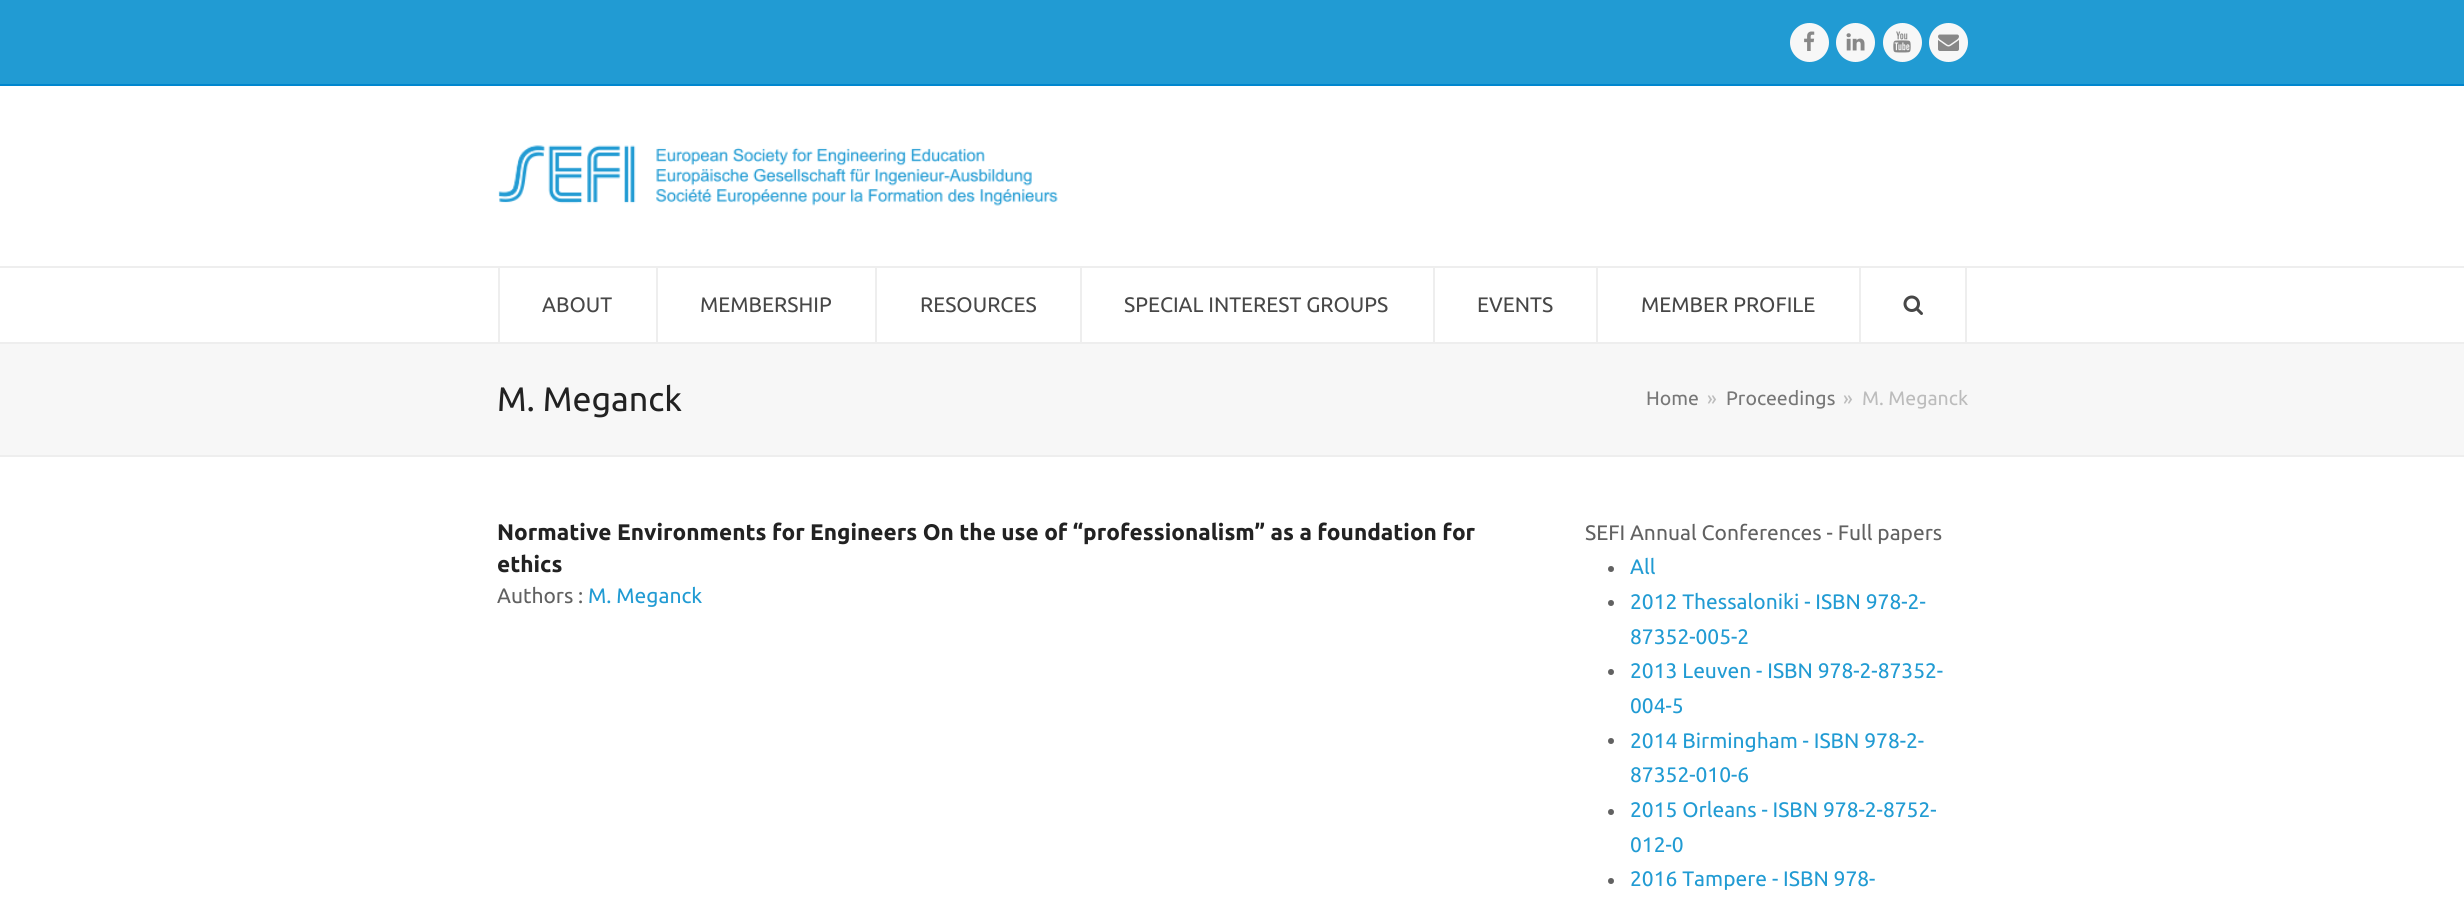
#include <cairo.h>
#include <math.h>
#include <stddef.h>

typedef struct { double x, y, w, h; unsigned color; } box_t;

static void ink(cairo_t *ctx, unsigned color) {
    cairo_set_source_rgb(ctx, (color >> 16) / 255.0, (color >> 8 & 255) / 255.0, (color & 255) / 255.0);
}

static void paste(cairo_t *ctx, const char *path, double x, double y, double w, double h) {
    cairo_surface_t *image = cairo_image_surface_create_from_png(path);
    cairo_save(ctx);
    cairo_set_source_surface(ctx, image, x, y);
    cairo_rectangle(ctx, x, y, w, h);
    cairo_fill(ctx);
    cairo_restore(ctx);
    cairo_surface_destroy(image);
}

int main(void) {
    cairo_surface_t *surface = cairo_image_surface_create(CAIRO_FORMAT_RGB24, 2464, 911);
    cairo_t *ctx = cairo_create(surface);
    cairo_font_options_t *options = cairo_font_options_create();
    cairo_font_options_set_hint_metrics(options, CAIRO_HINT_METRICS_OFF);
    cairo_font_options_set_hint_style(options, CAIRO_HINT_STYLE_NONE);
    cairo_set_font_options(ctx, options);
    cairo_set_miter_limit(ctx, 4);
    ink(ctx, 0xFFFFFF);
    cairo_paint(ctx);
    ink(ctx, 0x219BD3);
    cairo_rectangle(ctx, 0, 0, 2464, 84);
    cairo_fill(ctx);
    ink(ctx, 0x0086CE);
    cairo_rectangle(ctx, 0, 84, 2464, 2);
    cairo_fill(ctx);
    ink(ctx, 0xF7F7F7);
    cairo_arc(ctx, 1809.5, 42.5, 19.5, 0, 2 * M_PI);
    cairo_fill(ctx);
    paste(ctx, "media/1.png", 1804, 31, 11, 20);
    cairo_arc(ctx, 1855.5, 42.5, 19.5, 0, 2 * M_PI);
    cairo_fill(ctx);
    paste(ctx, "media/2.png", 1846, 33, 19, 18);
    cairo_arc(ctx, 1902.5, 42.5, 19.5, 0, 2 * M_PI);
    cairo_fill(ctx);
    paste(ctx, "media/3.png", 1893, 31, 18, 22);
    cairo_arc(ctx, 1948.5, 42.5, 19.5, 0, 2 * M_PI);
    cairo_fill(ctx);
    paste(ctx, "media/4.png", 1938, 34, 21, 17);
    paste(ctx, "media/5.png", 498, 145, 560, 61);
    {
        static const box_t items[] = {
            {0, 266, 2464, 2, 0xEEEEEE},
            {498, 267, 2, 75, 0xEEEEEE},
            {656, 267, 2, 75, 0xEEEEEE},
        };
        for (size_t i = 0; i < sizeof items / sizeof *items; i++) {
            ink(ctx, items[i].color);
            cairo_rectangle(ctx, items[i].x, items[i].y, items[i].w, items[i].h);
            cairo_fill(ctx);
        }
    }
    cairo_select_font_face(ctx, "Ubuntu", CAIRO_FONT_SLANT_NORMAL, CAIRO_FONT_WEIGHT_NORMAL);
    cairo_set_font_size(ctx, 21);
    ink(ctx, 0x474747);
    cairo_move_to(ctx, 542, 312);
    cairo_show_text(ctx, "ABOUT");
    ink(ctx, 0xEEEEEE);
    cairo_rectangle(ctx, 875, 267, 2, 75);
    cairo_fill(ctx);
    ink(ctx, 0x474747);
    cairo_move_to(ctx, 700, 312);
    cairo_show_text(ctx, "MEMBERSHIP");
    ink(ctx, 0xEEEEEE);
    cairo_rectangle(ctx, 1080, 267, 2, 75);
    cairo_fill(ctx);
    ink(ctx, 0x474747);
    cairo_move_to(ctx, 920, 312);
    cairo_show_text(ctx, "RESOURCES");
    ink(ctx, 0xEEEEEE);
    cairo_rectangle(ctx, 1433, 267, 2, 75);
    cairo_fill(ctx);
    ink(ctx, 0x474747);
    cairo_move_to(ctx, 1124, 312);
    cairo_show_text(ctx, "SPECIAL INTEREST GROUPS");
    ink(ctx, 0xEEEEEE);
    cairo_rectangle(ctx, 1596, 267, 2, 75);
    cairo_fill(ctx);
    ink(ctx, 0x474747);
    cairo_move_to(ctx, 1477, 312);
    cairo_show_text(ctx, "EVENTS");
    ink(ctx, 0xEEEEEE);
    cairo_rectangle(ctx, 1859, 267, 2, 75);
    cairo_fill(ctx);
    ink(ctx, 0x474747);
    cairo_move_to(ctx, 1641, 312);
    cairo_show_text(ctx, "MEMBER PROFILE");
    ink(ctx, 0xEEEEEE);
    cairo_rectangle(ctx, 1965, 267, 2, 75);
    cairo_fill(ctx);
    paste(ctx, "media/6.png", 1903, 295, 20, 20);
    {
        static const box_t items[] = {
            {0, 344, 2464, 111, 0xF7F7F7},
            {0, 342, 2464, 2, 0xEEEEEE},
            {0, 455, 2464, 2, 0xEEEEEE},
        };
        for (size_t i = 0; i < sizeof items / sizeof *items; i++) {
            ink(ctx, items[i].color);
            cairo_rectangle(ctx, items[i].x, items[i].y, items[i].w, items[i].h);
            cairo_fill(ctx);
        }
    }
    cairo_set_font_size(ctx, 34);
    ink(ctx, 0x222222);
    cairo_move_to(ctx, 497, 411);
    cairo_show_text(ctx, "M. Meganck");
    cairo_set_font_size(ctx, 19.5);
    ink(ctx, 0x777777);
    cairo_move_to(ctx, 1646, 405);
    cairo_show_text(ctx, "Home");
    ink(ctx, 0xBCBCBC);
    cairo_move_to(ctx, 1707, 405);
    cairo_show_text(ctx, "»");
    ink(ctx, 0x777777);
    cairo_move_to(ctx, 1726, 405);
    cairo_show_text(ctx, "Proceedings");
    ink(ctx, 0xBCBCBC);
    cairo_move_to(ctx, 1843, 405);
    cairo_show_text(ctx, "»");
    cairo_move_to(ctx, 1862, 405);
    cairo_show_text(ctx, "M. Meganck");
    cairo_select_font_face(ctx, "Ubuntu", CAIRO_FONT_SLANT_NORMAL, CAIRO_FONT_WEIGHT_BOLD);
    cairo_set_font_size(ctx, 22.6);
    ink(ctx, 0x222222);
    cairo_move_to(ctx, 497, 540);
    cairo_show_text(ctx, "Normative Environments for Engineers On the use of “professionalism” as a foundation for");
    cairo_move_to(ctx, 497, 572);
    cairo_show_text(ctx, "ethics");
    cairo_select_font_face(ctx, "Ubuntu", CAIRO_FONT_SLANT_NORMAL, CAIRO_FONT_WEIGHT_NORMAL);
    cairo_set_font_size(ctx, 21);
    ink(ctx, 0x616161);
    cairo_move_to(ctx, 497, 603);
    cairo_show_text(ctx, "Authors :");
    ink(ctx, 0x219BD3);
    cairo_move_to(ctx, 588, 603);
    cairo_show_text(ctx, "M. Meganck");
    ink(ctx, 0x616161);
    cairo_move_to(ctx, 1585, 540);
    cairo_show_text(ctx, "SEFI Annual Conferences - Full papers");
    cairo_new_path(ctx);
    cairo_arc(ctx, 1611, 569, 3, 0, 2 * M_PI);
    cairo_fill(ctx);
    ink(ctx, 0x219BD3);
    cairo_move_to(ctx, 1630, 574);
    cairo_show_text(ctx, "All");
    ink(ctx, 0x616161);
    cairo_new_path(ctx);
    cairo_arc(ctx, 1611, 603, 3, 0, 2 * M_PI);
    cairo_fill(ctx);
    ink(ctx, 0x219BD3);
    cairo_move_to(ctx, 1630, 609);
    cairo_show_text(ctx, "2012 Thessaloniki - ISBN 978-2-");
    cairo_move_to(ctx, 1630, 644);
    cairo_show_text(ctx, "87352-005-2");
    ink(ctx, 0x616161);
    cairo_new_path(ctx);
    cairo_arc(ctx, 1611, 672, 3, 0, 2 * M_PI);
    cairo_fill(ctx);
    ink(ctx, 0x219BD3);
    cairo_move_to(ctx, 1630, 678);
    cairo_show_text(ctx, "2013 Leuven - ISBN 978-2-87352-");
    cairo_move_to(ctx, 1630, 713);
    cairo_show_text(ctx, "004-5");
    ink(ctx, 0x616161);
    cairo_new_path(ctx);
    cairo_arc(ctx, 1611, 741, 3, 0, 2 * M_PI);
    cairo_fill(ctx);
    ink(ctx, 0x219BD3);
    cairo_move_to(ctx, 1630, 748);
    cairo_show_text(ctx, "2014 Birmingham - ISBN 978-2-");
    cairo_move_to(ctx, 1630, 782);
    cairo_show_text(ctx, "87352-010-6");
    ink(ctx, 0x616161);
    cairo_new_path(ctx);
    cairo_arc(ctx, 1611, 812, 3, 0, 2 * M_PI);
    cairo_fill(ctx);
    ink(ctx, 0x219BD3);
    cairo_move_to(ctx, 1630, 817);
    cairo_show_text(ctx, "2015 Orleans - ISBN 978-2-8752-");
    cairo_move_to(ctx, 1630, 852);
    cairo_show_text(ctx, "012-0");
    ink(ctx, 0x616161);
    cairo_new_path(ctx);
    cairo_arc(ctx, 1611, 881, 3, 0, 2 * M_PI);
    cairo_fill(ctx);
    ink(ctx, 0x219BD3);
    cairo_move_to(ctx, 1630, 886);
    cairo_show_text(ctx, "2016 Tampere - ISBN 978-");
    cairo_surface_write_to_png(surface, "image.png");
    cairo_font_options_destroy(options);
    cairo_destroy(ctx);
    cairo_surface_destroy(surface);
    return 0;
}
